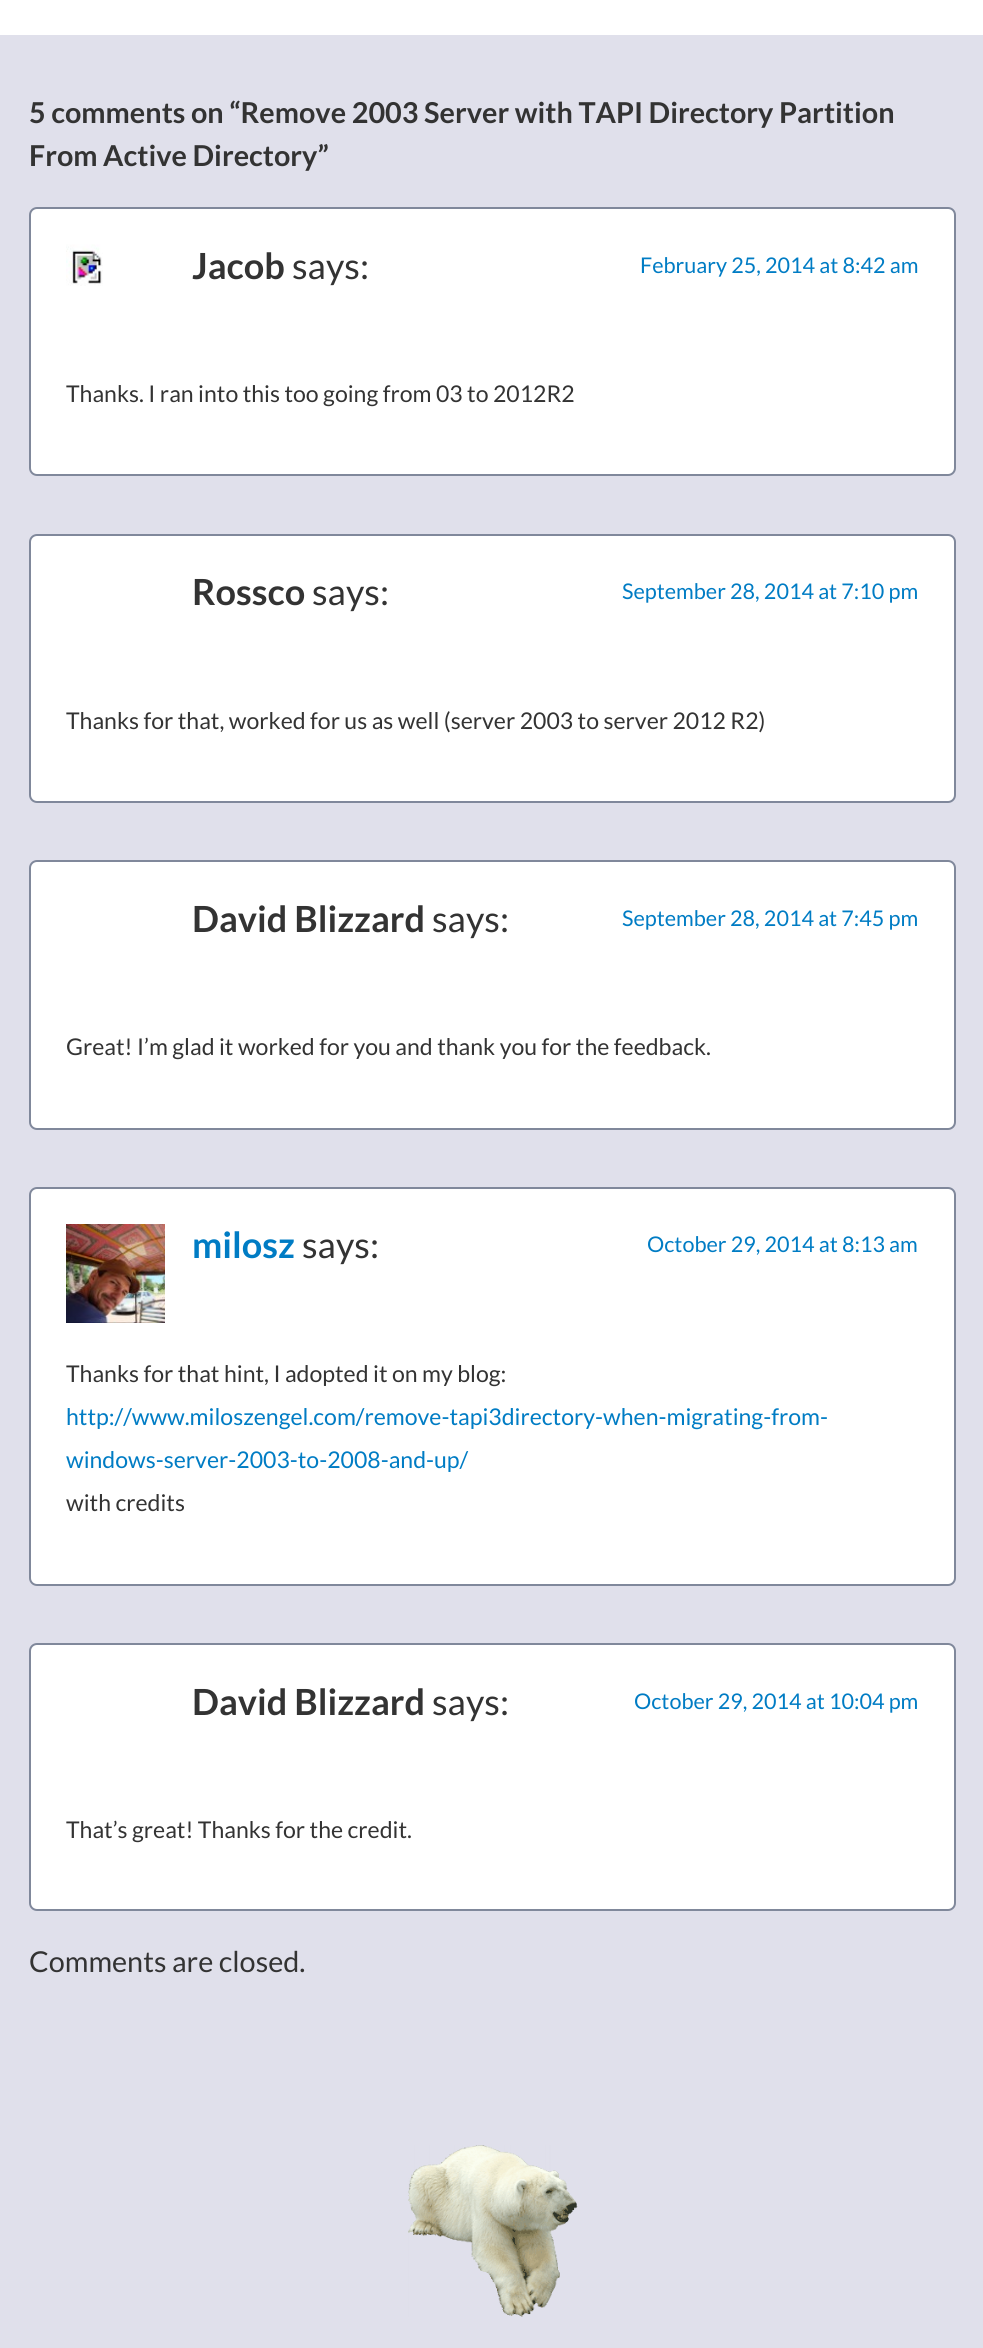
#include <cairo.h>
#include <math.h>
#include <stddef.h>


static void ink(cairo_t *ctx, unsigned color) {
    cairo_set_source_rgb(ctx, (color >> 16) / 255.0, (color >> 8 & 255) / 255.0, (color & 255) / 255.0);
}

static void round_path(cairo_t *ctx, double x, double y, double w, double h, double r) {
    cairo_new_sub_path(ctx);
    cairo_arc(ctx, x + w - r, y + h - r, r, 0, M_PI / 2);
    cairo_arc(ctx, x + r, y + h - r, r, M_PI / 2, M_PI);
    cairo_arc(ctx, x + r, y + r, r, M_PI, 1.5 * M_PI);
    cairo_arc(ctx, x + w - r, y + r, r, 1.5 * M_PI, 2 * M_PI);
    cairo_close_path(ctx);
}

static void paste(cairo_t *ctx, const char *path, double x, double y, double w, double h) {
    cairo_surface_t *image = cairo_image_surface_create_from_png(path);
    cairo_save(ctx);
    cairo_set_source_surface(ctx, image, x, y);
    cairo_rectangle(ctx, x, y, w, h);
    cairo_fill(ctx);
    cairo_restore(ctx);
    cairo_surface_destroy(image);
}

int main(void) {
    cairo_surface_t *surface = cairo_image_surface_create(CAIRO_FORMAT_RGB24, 983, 2348);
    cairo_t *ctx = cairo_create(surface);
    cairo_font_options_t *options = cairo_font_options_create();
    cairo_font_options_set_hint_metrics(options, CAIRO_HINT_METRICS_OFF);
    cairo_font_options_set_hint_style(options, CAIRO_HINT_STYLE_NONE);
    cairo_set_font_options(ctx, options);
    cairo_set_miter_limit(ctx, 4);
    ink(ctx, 0xE0E0EB);
    cairo_paint(ctx);
    ink(ctx, 0xFFFFFF);
    cairo_rectangle(ctx, 0, 0, 983, 35);
    cairo_fill(ctx);
    cairo_select_font_face(ctx, "Lato", CAIRO_FONT_SLANT_NORMAL, CAIRO_FONT_WEIGHT_BOLD);
    cairo_set_font_size(ctx, 28.8);
    ink(ctx, 0x333333);
    cairo_move_to(ctx, 29, 123);
    cairo_show_text(ctx, "5 comments on “Remove 2003 Server with TAPI Directory Partition");
    cairo_move_to(ctx, 29, 166);
    cairo_show_text(ctx, "From Active Directory”");
    ink(ctx, 0xFFFFFF);
    round_path(ctx, 30, 208, 925, 267, 7);
    cairo_fill_preserve(ctx);
    ink(ctx, 0x80889B);
    cairo_stroke(ctx);
    paste(ctx, "media/1.png", 66, 244, 37, 42);
    cairo_set_font_size(ctx, 36);
    ink(ctx, 0x333333);
    cairo_move_to(ctx, 192, 279);
    cairo_show_text(ctx, "Jacob");
    cairo_select_font_face(ctx, "Lato", CAIRO_FONT_SLANT_NORMAL, CAIRO_FONT_WEIGHT_NORMAL);
    cairo_move_to(ctx, 292, 279);
    cairo_show_text(ctx, "says:");
    cairo_set_font_size(ctx, 21.6);
    ink(ctx, 0x007CC4);
    cairo_move_to(ctx, 640, 273);
    cairo_show_text(ctx, "February 25, 2014 at 8:42 am");
    cairo_set_font_size(ctx, 23.05);
    ink(ctx, 0x333333);
    cairo_move_to(ctx, 66, 402);
    cairo_show_text(ctx, "Thanks. I ran into this too going from 03 to 2012R2");
    ink(ctx, 0xFFFFFF);
    round_path(ctx, 30, 535, 925, 267, 7);
    cairo_fill_preserve(ctx);
    ink(ctx, 0x80889B);
    cairo_stroke(ctx);
    cairo_select_font_face(ctx, "Lato", CAIRO_FONT_SLANT_NORMAL, CAIRO_FONT_WEIGHT_BOLD);
    cairo_set_font_size(ctx, 36);
    ink(ctx, 0x333333);
    cairo_move_to(ctx, 192, 605);
    cairo_show_text(ctx, "Rossco");
    cairo_select_font_face(ctx, "Lato", CAIRO_FONT_SLANT_NORMAL, CAIRO_FONT_WEIGHT_NORMAL);
    cairo_move_to(ctx, 312, 605);
    cairo_show_text(ctx, "says:");
    cairo_set_font_size(ctx, 21.6);
    ink(ctx, 0x007CC4);
    cairo_move_to(ctx, 622, 599);
    cairo_show_text(ctx, "September 28, 2014 at 7:10 pm");
    cairo_set_font_size(ctx, 23.05);
    ink(ctx, 0x333333);
    cairo_move_to(ctx, 66, 729);
    cairo_show_text(ctx, "Thanks for that, worked for us as well (server 2003 to server 2012 R2)");
    ink(ctx, 0xFFFFFF);
    round_path(ctx, 30, 861, 925, 268, 7);
    cairo_fill_preserve(ctx);
    ink(ctx, 0x80889B);
    cairo_stroke(ctx);
    cairo_select_font_face(ctx, "Lato", CAIRO_FONT_SLANT_NORMAL, CAIRO_FONT_WEIGHT_BOLD);
    cairo_set_font_size(ctx, 36);
    ink(ctx, 0x333333);
    cairo_move_to(ctx, 192, 932);
    cairo_show_text(ctx, "David Blizzard");
    cairo_select_font_face(ctx, "Lato", CAIRO_FONT_SLANT_NORMAL, CAIRO_FONT_WEIGHT_NORMAL);
    cairo_move_to(ctx, 432, 932);
    cairo_show_text(ctx, "says:");
    cairo_set_font_size(ctx, 21.6);
    ink(ctx, 0x007CC4);
    cairo_move_to(ctx, 622, 926);
    cairo_show_text(ctx, "September 28, 2014 at 7:45 pm");
    cairo_set_font_size(ctx, 23.05);
    ink(ctx, 0x333333);
    cairo_move_to(ctx, 66, 1055);
    cairo_show_text(ctx, "Great! I’m glad it worked for you and thank you for the feedback.");
    ink(ctx, 0xFFFFFF);
    round_path(ctx, 30, 1188, 925, 397, 7);
    cairo_fill_preserve(ctx);
    ink(ctx, 0x80889B);
    cairo_stroke(ctx);
    paste(ctx, "media/2.png", 66, 1224, 99, 99);
    cairo_select_font_face(ctx, "Lato", CAIRO_FONT_SLANT_NORMAL, CAIRO_FONT_WEIGHT_BOLD);
    cairo_set_font_size(ctx, 36);
    ink(ctx, 0x007CC4);
    cairo_move_to(ctx, 192, 1258);
    cairo_show_text(ctx, "milosz");
    cairo_select_font_face(ctx, "Lato", CAIRO_FONT_SLANT_NORMAL, CAIRO_FONT_WEIGHT_NORMAL);
    ink(ctx, 0x333333);
    cairo_move_to(ctx, 302, 1258);
    cairo_show_text(ctx, "says:");
    cairo_set_font_size(ctx, 21.6);
    ink(ctx, 0x007CC4);
    cairo_move_to(ctx, 647, 1252);
    cairo_show_text(ctx, "October 29, 2014 at 8:13 am");
    cairo_set_font_size(ctx, 23.05);
    ink(ctx, 0x333333);
    cairo_move_to(ctx, 66, 1382);
    cairo_show_text(ctx, "Thanks for that hint, I adopted it on my blog:");
    ink(ctx, 0x007CC4);
    cairo_move_to(ctx, 66, 1425);
    cairo_show_text(ctx, "http://www.miloszengel.com/remove-tapi3directory-when-migrating-from-");
    cairo_move_to(ctx, 66, 1468);
    cairo_show_text(ctx, "windows-server-2003-to-2008-and-up/");
    ink(ctx, 0x333333);
    cairo_move_to(ctx, 66, 1511);
    cairo_show_text(ctx, "with credits");
    ink(ctx, 0xFFFFFF);
    round_path(ctx, 30, 1644, 925, 266, 7);
    cairo_fill_preserve(ctx);
    ink(ctx, 0x80889B);
    cairo_stroke(ctx);
    cairo_select_font_face(ctx, "Lato", CAIRO_FONT_SLANT_NORMAL, CAIRO_FONT_WEIGHT_BOLD);
    cairo_set_font_size(ctx, 36);
    ink(ctx, 0x333333);
    cairo_move_to(ctx, 192, 1715);
    cairo_show_text(ctx, "David Blizzard");
    cairo_select_font_face(ctx, "Lato", CAIRO_FONT_SLANT_NORMAL, CAIRO_FONT_WEIGHT_NORMAL);
    cairo_move_to(ctx, 432, 1715);
    cairo_show_text(ctx, "says:");
    cairo_set_font_size(ctx, 21.6);
    ink(ctx, 0x007CC4);
    cairo_move_to(ctx, 634, 1709);
    cairo_show_text(ctx, "October 29, 2014 at 10:04 pm");
    cairo_set_font_size(ctx, 23.05);
    ink(ctx, 0x333333);
    cairo_move_to(ctx, 66, 1838);
    cairo_show_text(ctx, "That’s great! Thanks for the credit.");
    cairo_set_font_size(ctx, 28.8);
    cairo_move_to(ctx, 29, 1972);
    cairo_show_text(ctx, "Comments are closed.");
    paste(ctx, "media/3.png", 408, 2145, 170, 172);
    cairo_surface_write_to_png(surface, "image.png");
    cairo_font_options_destroy(options);
    cairo_destroy(ctx);
    cairo_surface_destroy(surface);
    return 0;
}
